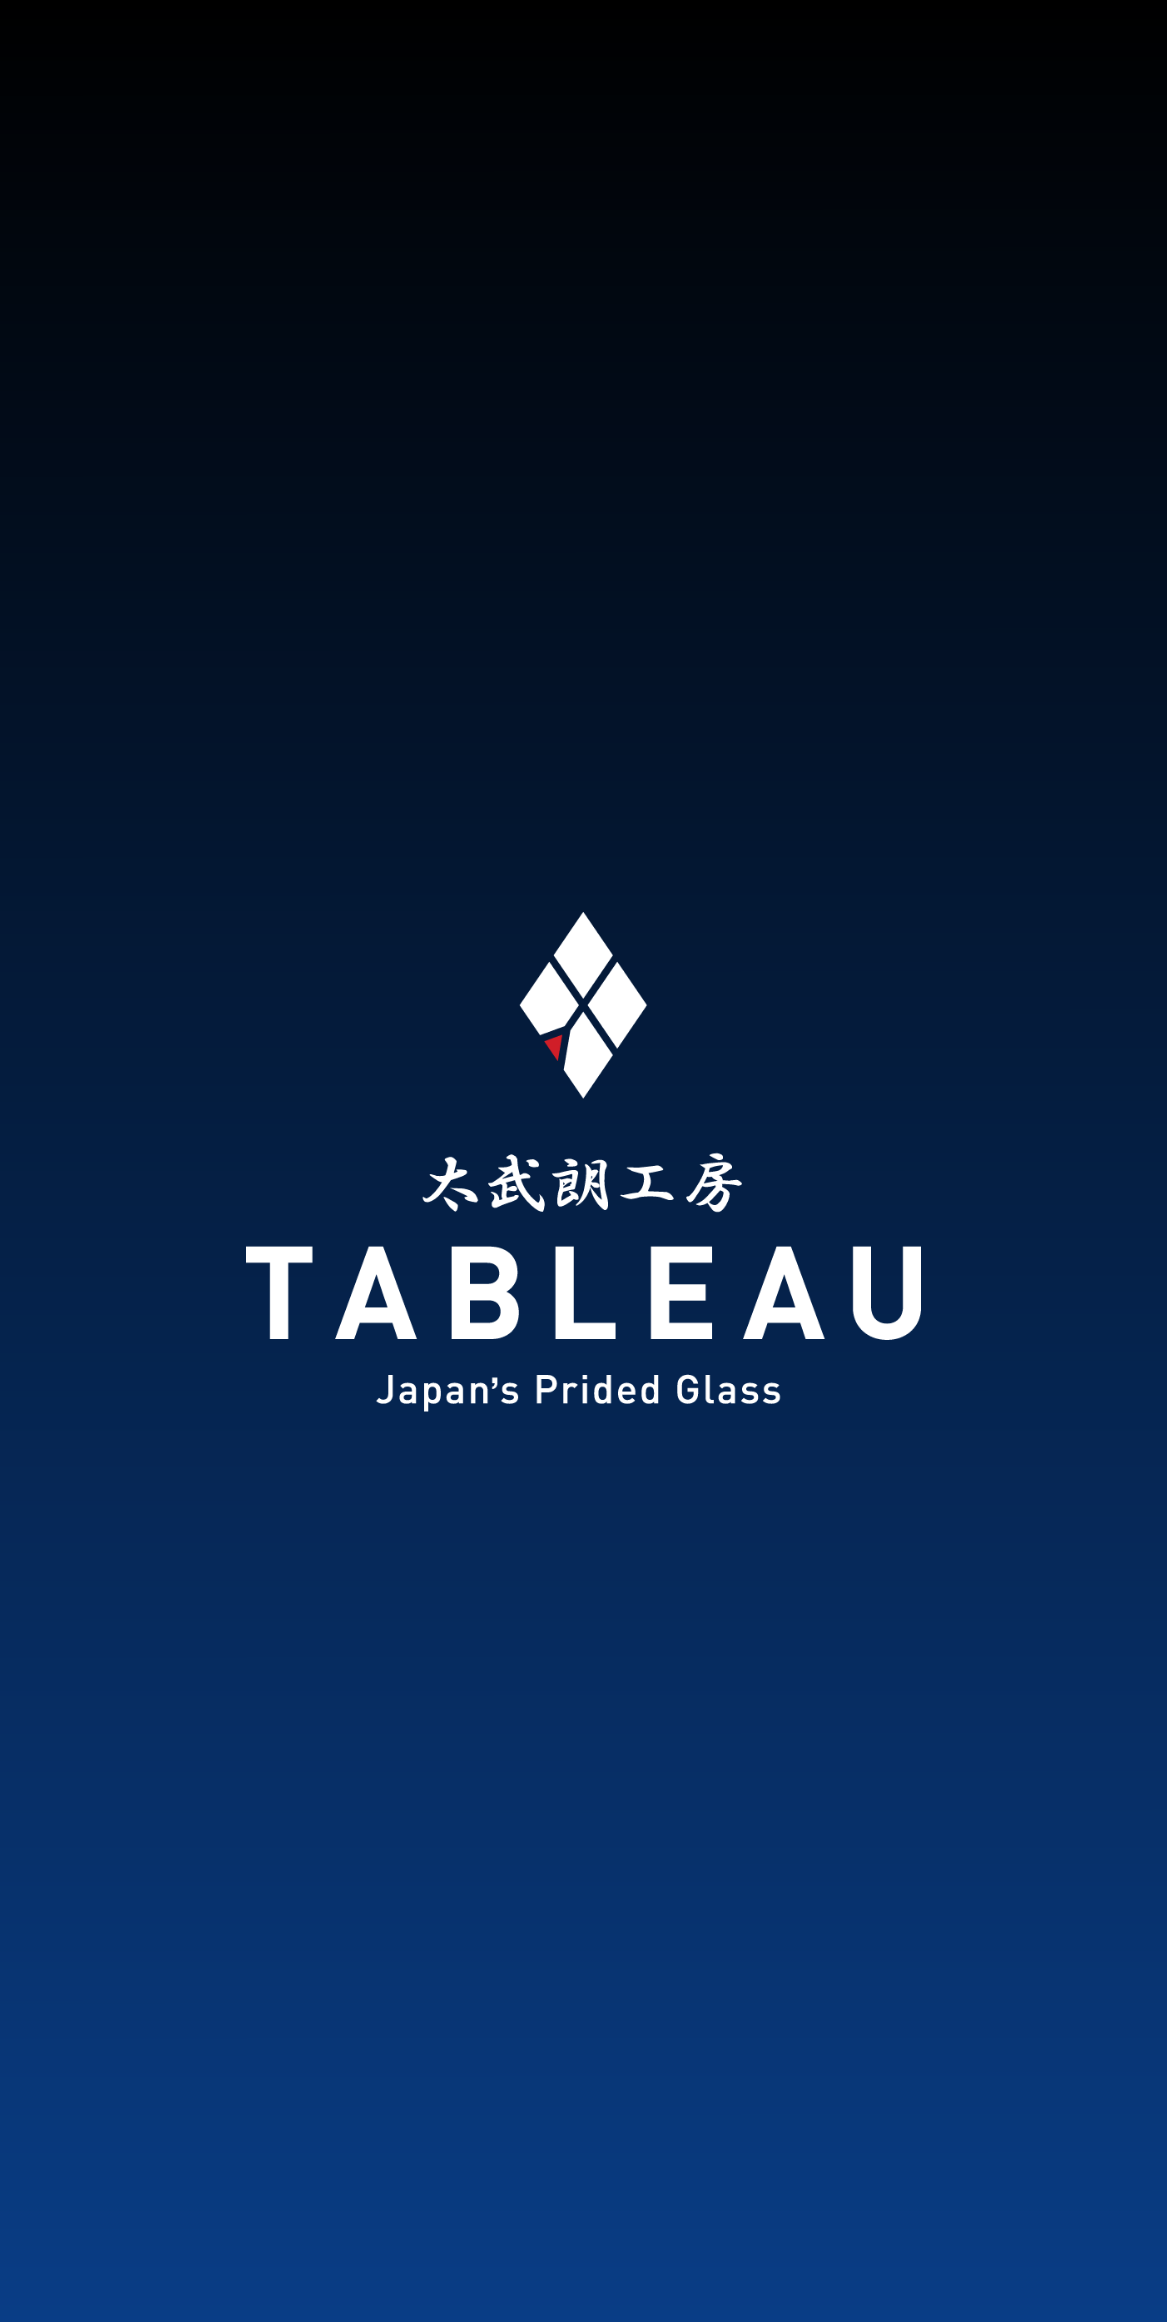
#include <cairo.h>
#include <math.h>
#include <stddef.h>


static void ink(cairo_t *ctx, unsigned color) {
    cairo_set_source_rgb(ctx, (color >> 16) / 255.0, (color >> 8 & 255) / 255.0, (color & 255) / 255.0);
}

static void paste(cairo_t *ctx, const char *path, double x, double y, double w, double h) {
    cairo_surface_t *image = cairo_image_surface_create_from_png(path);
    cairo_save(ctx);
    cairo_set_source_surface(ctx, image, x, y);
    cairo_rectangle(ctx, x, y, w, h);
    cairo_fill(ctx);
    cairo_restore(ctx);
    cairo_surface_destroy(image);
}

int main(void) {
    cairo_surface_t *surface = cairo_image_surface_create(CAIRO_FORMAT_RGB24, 1167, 2322);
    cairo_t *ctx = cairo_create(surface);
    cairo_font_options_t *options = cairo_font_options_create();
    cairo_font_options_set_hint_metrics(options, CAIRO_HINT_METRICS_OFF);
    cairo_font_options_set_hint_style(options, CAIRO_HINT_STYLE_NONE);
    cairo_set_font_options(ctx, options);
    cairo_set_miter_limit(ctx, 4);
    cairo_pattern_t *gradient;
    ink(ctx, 0xFFFFFF);
    cairo_paint(ctx);
    gradient = cairo_pattern_create_linear(583, 0, 584, 2322);
    cairo_pattern_add_color_stop_rgba(gradient, 0, 0, 0, 0, 1);
    cairo_pattern_add_color_stop_rgba(gradient, 1, 0.035, 0.239, 0.525, 1);
    cairo_set_source(ctx, gradient);
    cairo_pattern_destroy(gradient);
    cairo_rectangle(ctx, 0, 0, 1167, 2322);
    cairo_fill(ctx);
    paste(ctx, "media/1.png", 246, 912, 675, 500);
    cairo_surface_write_to_png(surface, "image.png");
    cairo_font_options_destroy(options);
    cairo_destroy(ctx);
    cairo_surface_destroy(surface);
    return 0;
}
